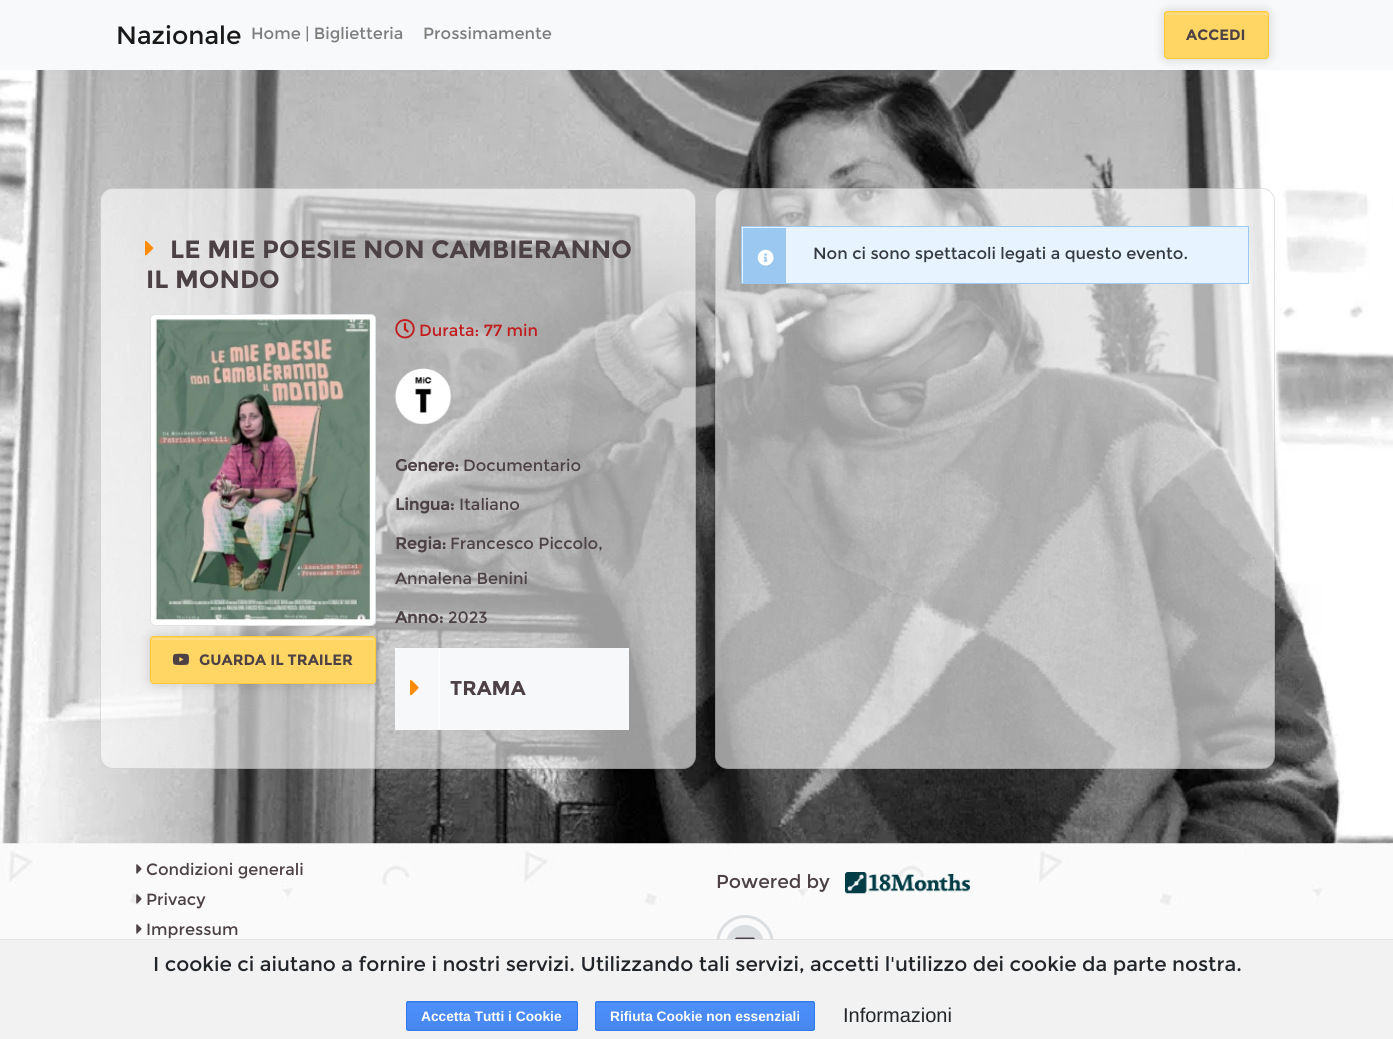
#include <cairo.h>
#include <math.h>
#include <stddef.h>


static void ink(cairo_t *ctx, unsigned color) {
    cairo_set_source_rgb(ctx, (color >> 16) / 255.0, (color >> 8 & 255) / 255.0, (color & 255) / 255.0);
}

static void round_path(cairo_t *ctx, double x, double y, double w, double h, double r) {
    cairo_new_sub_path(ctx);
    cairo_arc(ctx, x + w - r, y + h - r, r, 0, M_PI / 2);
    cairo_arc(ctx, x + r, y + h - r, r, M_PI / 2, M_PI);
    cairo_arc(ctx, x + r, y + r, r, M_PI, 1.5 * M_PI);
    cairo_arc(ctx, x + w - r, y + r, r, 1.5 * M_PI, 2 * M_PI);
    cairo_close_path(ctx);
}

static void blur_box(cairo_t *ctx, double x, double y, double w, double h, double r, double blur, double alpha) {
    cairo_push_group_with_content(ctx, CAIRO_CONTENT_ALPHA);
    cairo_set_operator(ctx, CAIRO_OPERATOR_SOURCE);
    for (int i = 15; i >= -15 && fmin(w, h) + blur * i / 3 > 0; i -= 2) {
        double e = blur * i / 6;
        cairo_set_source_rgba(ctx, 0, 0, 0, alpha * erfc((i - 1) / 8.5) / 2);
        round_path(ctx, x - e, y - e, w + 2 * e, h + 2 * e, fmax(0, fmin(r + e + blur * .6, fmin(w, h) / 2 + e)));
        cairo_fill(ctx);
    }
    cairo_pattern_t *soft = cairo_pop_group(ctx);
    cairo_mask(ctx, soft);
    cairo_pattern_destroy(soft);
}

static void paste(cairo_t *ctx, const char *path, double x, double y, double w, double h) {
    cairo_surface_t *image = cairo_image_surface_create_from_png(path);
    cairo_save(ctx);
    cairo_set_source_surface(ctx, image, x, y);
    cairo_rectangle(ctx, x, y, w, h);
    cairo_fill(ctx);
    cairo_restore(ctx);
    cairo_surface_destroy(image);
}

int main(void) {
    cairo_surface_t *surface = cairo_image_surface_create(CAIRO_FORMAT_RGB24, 1393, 1039);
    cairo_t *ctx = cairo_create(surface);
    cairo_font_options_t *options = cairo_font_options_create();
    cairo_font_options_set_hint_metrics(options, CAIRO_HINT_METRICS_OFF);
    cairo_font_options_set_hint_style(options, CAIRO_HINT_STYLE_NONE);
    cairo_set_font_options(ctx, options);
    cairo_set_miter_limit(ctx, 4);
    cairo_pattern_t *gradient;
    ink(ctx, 0xFFFFFF);
    cairo_paint(ctx);
    ink(ctx, 0xF8F9FA);
    cairo_rectangle(ctx, 0, 0, 1393, 70);
    cairo_fill(ctx);
    cairo_select_font_face(ctx, "Montserrat", CAIRO_FONT_SLANT_NORMAL, CAIRO_FONT_WEIGHT_NORMAL);
    cairo_set_font_size(ctx, 25);
    ink(ctx, 0x191919);
    cairo_move_to(ctx, 116, 44);
    cairo_show_text(ctx, "Nazionale");
    cairo_set_font_size(ctx, 16.25);
    ink(ctx, 0x7C7D7D);
    cairo_move_to(ctx, 251, 39);
    cairo_show_text(ctx, "Home | Biglietteria");
    cairo_move_to(ctx, 423, 39);
    cairo_show_text(ctx, "Prossimamente");
    paste(ctx, "media/1.png", 0, 70, 1393, 774);
    ink(ctx, 0x000000);
    blur_box(ctx, 1164, 11, 105, 48, 4, 6, 0.16);
    ink(ctx, 0xFFD564);
    round_path(ctx, 1164, 11, 105, 48, 4);
    cairo_fill(ctx);
    ink(ctx, 0xFFDD83);
    cairo_new_path(ctx);
    cairo_move_to(ctx, 1168, 15);
    cairo_line_to(ctx, 1265, 15);
    cairo_curve_to(ctx, 1266, 15, 1268, 16, 1268, 18);
    cairo_line_to(ctx, 1268, 16);
    cairo_curve_to(ctx, 1268, 14, 1267, 13, 1266, 13);
    cairo_line_to(ctx, 1168, 13);
    cairo_curve_to(ctx, 1166, 13, 1165, 14, 1165, 16);
    cairo_line_to(ctx, 1165, 18);
    cairo_curve_to(ctx, 1165, 16, 1166, 15, 1168, 15);
    cairo_close_path(ctx);
    cairo_fill(ctx);
    round_path(ctx, 1164.5, 11.5, 104, 47, 3.5);
    ink(ctx, 0xFFC936);
    cairo_set_line_width(ctx, 1);
    cairo_stroke(ctx);
    cairo_select_font_face(ctx, "Montserrat", CAIRO_FONT_SLANT_NORMAL, CAIRO_FONT_WEIGHT_BOLD);
    cairo_set_font_size(ctx, 15);
    ink(ctx, 0x4C4145);
    cairo_move_to(ctx, 1186, 40);
    cairo_show_text(ctx, "ACCEDI");
    cairo_set_source_rgba(ctx, 1, 1, 1, 0.6);
    round_path(ctx, 100, 188, 596, 581, 13);
    cairo_fill(ctx);
    round_path(ctx, 100.5, 188.5, 595, 580, 12.5);
    cairo_set_source_rgba(ctx, 0, 0, 0, 0.12);
    cairo_stroke(ctx);
    paste(ctx, "media/2.png", 145, 240, 9, 16);
    cairo_set_font_size(ctx, 25);
    ink(ctx, 0x4C4145);
    cairo_move_to(ctx, 170, 258);
    cairo_show_text(ctx, "LE MIE POESIE NON CAMBIERANNO");
    cairo_move_to(ctx, 146, 288);
    cairo_show_text(ctx, "IL MONDO");
    ink(ctx, 0x000000);
    blur_box(ctx, 150, 636, 226, 48, 4, 6, 0.16);
    ink(ctx, 0xFFFFFF);
    round_path(ctx, 150.5, 314.5, 225, 311, 4.5);
    cairo_fill_preserve(ctx);
    ink(ctx, 0xDEE2E6);
    cairo_stroke(ctx);
    paste(ctx, "media/3.png", 155, 319, 216, 301);
    ink(ctx, 0xFFD564);
    round_path(ctx, 150, 636, 226, 48, 4);
    cairo_fill(ctx);
    ink(ctx, 0xFFDD83);
    cairo_new_path(ctx);
    cairo_move_to(ctx, 154, 640);
    cairo_line_to(ctx, 372, 640);
    cairo_curve_to(ctx, 374, 640, 375, 641, 375, 642);
    cairo_curve_to(ctx, 375, 640, 375, 638, 372, 638);
    cairo_line_to(ctx, 154, 638);
    cairo_curve_to(ctx, 151, 638, 151, 640, 151, 642);
    cairo_curve_to(ctx, 151, 641, 152, 640, 154, 640);
    cairo_close_path(ctx);
    cairo_fill(ctx);
    round_path(ctx, 150.5, 636.5, 225, 47, 3.5);
    ink(ctx, 0xFFC936);
    cairo_stroke(ctx);
    paste(ctx, "media/4.png", 172, 653, 17, 12);
    cairo_set_font_size(ctx, 15);
    ink(ctx, 0x4C4145);
    cairo_move_to(ctx, 199, 665);
    cairo_show_text(ctx, "GUARDA IL TRAILER");
    paste(ctx, "media/5.png", 395, 319, 20, 20);
    cairo_select_font_face(ctx, "Montserrat", CAIRO_FONT_SLANT_NORMAL, CAIRO_FONT_WEIGHT_NORMAL);
    cairo_set_font_size(ctx, 16.25);
    ink(ctx, 0xC31C1D);
    cairo_move_to(ctx, 419, 336);
    cairo_show_text(ctx, "Durata: 77 min");
    paste(ctx, "media/6.png", 394, 368, 58, 57);
    cairo_select_font_face(ctx, "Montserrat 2", CAIRO_FONT_SLANT_NORMAL, CAIRO_FONT_WEIGHT_BOLD);
    ink(ctx, 0x4C4145);
    cairo_move_to(ctx, 395, 471);
    cairo_show_text(ctx, "Genere:");
    cairo_select_font_face(ctx, "Montserrat", CAIRO_FONT_SLANT_NORMAL, CAIRO_FONT_WEIGHT_NORMAL);
    cairo_move_to(ctx, 463, 471);
    cairo_show_text(ctx, "Documentario");
    cairo_select_font_face(ctx, "Montserrat 2", CAIRO_FONT_SLANT_NORMAL, CAIRO_FONT_WEIGHT_BOLD);
    cairo_move_to(ctx, 395, 510);
    cairo_show_text(ctx, "Lingua:");
    cairo_select_font_face(ctx, "Montserrat", CAIRO_FONT_SLANT_NORMAL, CAIRO_FONT_WEIGHT_NORMAL);
    cairo_move_to(ctx, 459, 510);
    cairo_show_text(ctx, "Italiano");
    cairo_select_font_face(ctx, "Montserrat 2", CAIRO_FONT_SLANT_NORMAL, CAIRO_FONT_WEIGHT_BOLD);
    cairo_move_to(ctx, 395, 549);
    cairo_show_text(ctx, "Regia:");
    cairo_select_font_face(ctx, "Montserrat", CAIRO_FONT_SLANT_NORMAL, CAIRO_FONT_WEIGHT_NORMAL);
    cairo_move_to(ctx, 450, 549);
    cairo_show_text(ctx, "Francesco Piccolo,");
    cairo_move_to(ctx, 395, 584);
    cairo_show_text(ctx, "Annalena Benini");
    cairo_select_font_face(ctx, "Montserrat 2", CAIRO_FONT_SLANT_NORMAL, CAIRO_FONT_WEIGHT_BOLD);
    cairo_move_to(ctx, 395, 623);
    cairo_show_text(ctx, "Anno:");
    cairo_select_font_face(ctx, "Montserrat", CAIRO_FONT_SLANT_NORMAL, CAIRO_FONT_WEIGHT_NORMAL);
    cairo_move_to(ctx, 448, 623);
    cairo_show_text(ctx, "2023");
    ink(ctx, 0xFFFFFF);
    cairo_rectangle(ctx, 395, 648, 234, 4);
    cairo_fill(ctx);
    ink(ctx, 0xF7F8F9);
    cairo_new_path(ctx);
    cairo_move_to(ctx, 399, 648);
    cairo_line_to(ctx, 625, 648);
    cairo_curve_to(ctx, 627, 648, 629, 650, 629, 652);
    cairo_line_to(ctx, 629, 730);
    cairo_line_to(ctx, 395, 730);
    cairo_line_to(ctx, 395, 652);
    cairo_curve_to(ctx, 395, 650, 397, 648, 399, 648);
    cairo_close_path(ctx);
    cairo_fill(ctx);
    ink(ctx, 0xFFFFFF);
    cairo_rectangle(ctx, 439, 649, 1, 80);
    cairo_fill(ctx);
    paste(ctx, "media/7.png", 410, 680, 9, 16);
    cairo_select_font_face(ctx, "Montserrat", CAIRO_FONT_SLANT_NORMAL, CAIRO_FONT_WEIGHT_BOLD);
    cairo_set_font_size(ctx, 20);
    ink(ctx, 0x4C4145);
    cairo_move_to(ctx, 450, 695);
    cairo_show_text(ctx, "TRAMA");
    cairo_set_source_rgba(ctx, 1, 1, 1, 0.6);
    round_path(ctx, 715, 188, 560, 581, 13);
    cairo_fill(ctx);
    round_path(ctx, 715.5, 188.5, 559, 580, 12.5);
    cairo_set_source_rgba(ctx, 0, 0, 0, 0.12);
    cairo_stroke(ctx);
    ink(ctx, 0xE7F4FF);
    cairo_rectangle(ctx, 741.5, 226.5, 507, 57);
    cairo_fill_preserve(ctx);
    ink(ctx, 0x9AC8F1);
    cairo_stroke(ctx);
    cairo_rectangle(ctx, 743, 228, 43, 55);
    cairo_fill(ctx);
    paste(ctx, "media/8.png", 757, 249, 17, 17);
    cairo_select_font_face(ctx, "Montserrat", CAIRO_FONT_SLANT_NORMAL, CAIRO_FONT_WEIGHT_NORMAL);
    cairo_set_font_size(ctx, 16.25);
    ink(ctx, 0x343A40);
    cairo_move_to(ctx, 813, 259);
    cairo_show_text(ctx, "Non ci sono spettacoli legati a questo evento.");
    ink(ctx, 0xFAFAFA);
    cairo_rectangle(ctx, 0, 844, 2, 95);
    cairo_fill(ctx);
    paste(ctx, "media/9.png", 2, 843, 1391, 96);
    paste(ctx, "media/10.png", 136, 864, 6, 10);
    ink(ctx, 0x4C4145);
    cairo_move_to(ctx, 146, 875);
    cairo_show_text(ctx, "Condizioni generali");
    paste(ctx, "media/11.png", 136, 894, 6, 10);
    cairo_move_to(ctx, 146, 905);
    cairo_show_text(ctx, "Privacy");
    paste(ctx, "media/10.png", 136, 924, 6, 10);
    cairo_move_to(ctx, 146, 935);
    cairo_show_text(ctx, "Impressum");
    cairo_set_font_size(ctx, 18.75);
    cairo_move_to(ctx, 716, 888);
    cairo_show_text(ctx, "Powered by");
    paste(ctx, "media/12.png", 845, 872, 125, 22);
    ink(ctx, 0xDBDEE1);
    round_path(ctx, 726, 925, 38, 39, 19);
    cairo_fill(ctx);
    paste(ctx, "media/13.png", 735, 937, 20, 2);
    cairo_arc(ctx, 745, 944, 27.5, 0, 2 * M_PI);
    cairo_set_line_width(ctx, 3);
    cairo_stroke(ctx);
    ink(ctx, 0xF2F2F2);
    cairo_rectangle(ctx, 0, 940, 1393, 99);
    cairo_fill(ctx);
    ink(ctx, 0xE4E4E4);
    cairo_rectangle(ctx, 0, 939, 1393, 1);
    cairo_fill(ctx);
    cairo_set_font_size(ctx, 20);
    ink(ctx, 0x212529);
    cairo_move_to(ctx, 153, 971);
    cairo_show_text(ctx, "I cookie ci aiutano a fornire i nostri servizi. Utilizzando tali servizi, accetti l'utilizzo dei cookie da parte nostra.");
    cairo_save(ctx);
    round_path(ctx, 406, 1001, 172, 30, 2.5);
    cairo_clip(ctx);
    gradient = cairo_pattern_create_linear(492, 975, 492, 1003);
    cairo_pattern_add_color_stop_rgba(gradient, 0, 0.302, 0.565, 0.996, 1);
    cairo_pattern_add_color_stop_rgba(gradient, 1, 0.278, 0.529, 0.929, 1);
    cairo_set_source(ctx, gradient);
    cairo_pattern_destroy(gradient);
    cairo_rectangle(ctx, 406, 1001, 172, 2);
    cairo_fill(ctx);
    cairo_restore(ctx);
    gradient = cairo_pattern_create_linear(492, 1003, 492, 1030);
    cairo_pattern_add_color_stop_rgba(gradient, 0, 0.302, 0.565, 0.996, 1);
    cairo_pattern_add_color_stop_rgba(gradient, 1, 0.278, 0.529, 0.929, 1);
    cairo_set_source(ctx, gradient);
    cairo_pattern_destroy(gradient);
    cairo_rectangle(ctx, 406, 1003, 172, 27);
    cairo_fill(ctx);
    round_path(ctx, 406.5, 1001.5, 171, 29, 2);
    ink(ctx, 0x3079ED);
    cairo_set_line_width(ctx, 1);
    cairo_stroke(ctx);
    cairo_select_font_face(ctx, "Liberation Sans", CAIRO_FONT_SLANT_NORMAL, CAIRO_FONT_WEIGHT_BOLD);
    cairo_set_font_size(ctx, 13.75);
    ink(ctx, 0xFFFFFF);
    cairo_move_to(ctx, 421, 1021);
    cairo_show_text(ctx, "Accetta Tutti i Cookie");
    cairo_save(ctx);
    round_path(ctx, 595, 1001, 220, 30, 2.5);
    cairo_clip(ctx);
    gradient = cairo_pattern_create_linear(705, 975, 705, 1003);
    cairo_pattern_add_color_stop_rgba(gradient, 0, 0.302, 0.565, 0.996, 1);
    cairo_pattern_add_color_stop_rgba(gradient, 1, 0.278, 0.529, 0.929, 1);
    cairo_set_source(ctx, gradient);
    cairo_pattern_destroy(gradient);
    cairo_rectangle(ctx, 595, 1001, 220, 2);
    cairo_fill(ctx);
    cairo_restore(ctx);
    gradient = cairo_pattern_create_linear(705, 1003, 705, 1030);
    cairo_pattern_add_color_stop_rgba(gradient, 0, 0.302, 0.565, 0.996, 1);
    cairo_pattern_add_color_stop_rgba(gradient, 1, 0.278, 0.529, 0.929, 1);
    cairo_set_source(ctx, gradient);
    cairo_pattern_destroy(gradient);
    cairo_rectangle(ctx, 595, 1003, 220, 27);
    cairo_fill(ctx);
    round_path(ctx, 595.5, 1001.5, 219, 29, 2);
    ink(ctx, 0x3079ED);
    cairo_stroke(ctx);
    ink(ctx, 0xFFFFFF);
    cairo_move_to(ctx, 610, 1021);
    cairo_show_text(ctx, "Rifiuta Cookie non essenziali");
    cairo_select_font_face(ctx, "Liberation Sans", CAIRO_FONT_SLANT_NORMAL, CAIRO_FONT_WEIGHT_NORMAL);
    cairo_set_font_size(ctx, 20);
    ink(ctx, 0x212529);
    cairo_move_to(ctx, 843, 1022);
    cairo_show_text(ctx, "Informazioni");
    cairo_surface_write_to_png(surface, "image.png");
    cairo_font_options_destroy(options);
    cairo_destroy(ctx);
    cairo_surface_destroy(surface);
    return 0;
}
